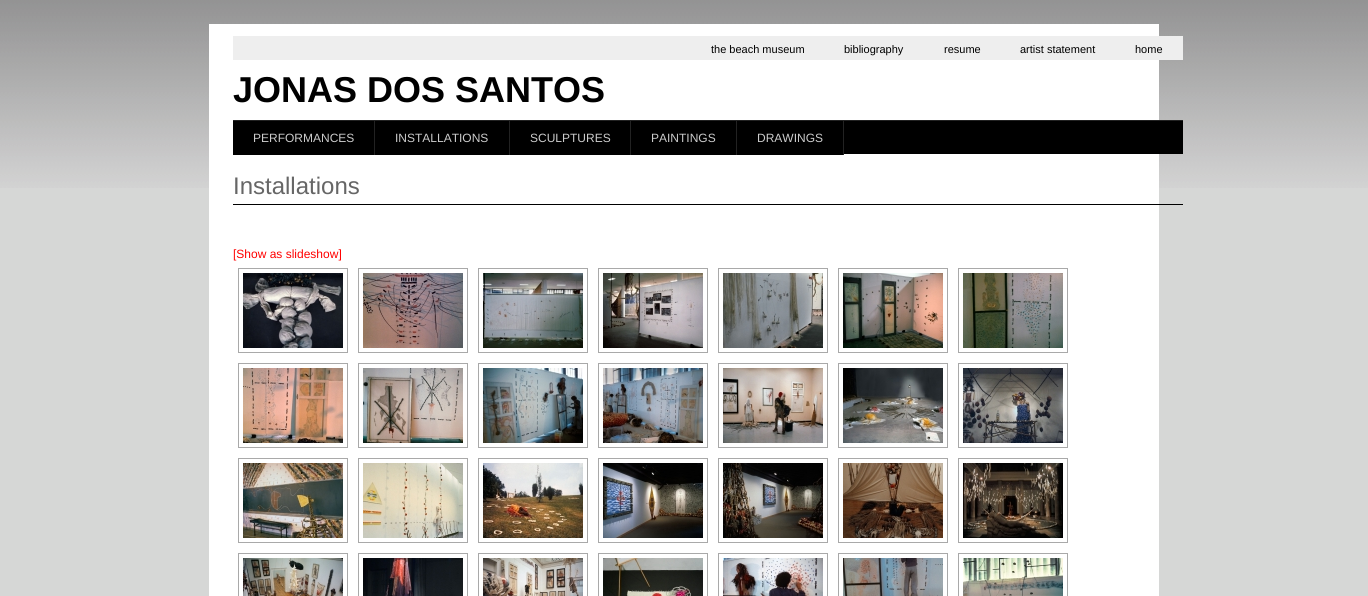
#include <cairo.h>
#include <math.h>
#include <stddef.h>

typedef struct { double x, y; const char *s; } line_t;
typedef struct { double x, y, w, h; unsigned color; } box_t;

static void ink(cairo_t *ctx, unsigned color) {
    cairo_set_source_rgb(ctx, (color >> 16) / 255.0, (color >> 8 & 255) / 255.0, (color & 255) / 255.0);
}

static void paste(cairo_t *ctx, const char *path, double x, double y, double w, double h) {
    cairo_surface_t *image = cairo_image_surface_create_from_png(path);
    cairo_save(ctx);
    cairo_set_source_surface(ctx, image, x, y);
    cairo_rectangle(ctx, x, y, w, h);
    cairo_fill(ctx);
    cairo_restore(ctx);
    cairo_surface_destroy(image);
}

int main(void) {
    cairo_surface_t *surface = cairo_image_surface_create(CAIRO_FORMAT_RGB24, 1368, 596);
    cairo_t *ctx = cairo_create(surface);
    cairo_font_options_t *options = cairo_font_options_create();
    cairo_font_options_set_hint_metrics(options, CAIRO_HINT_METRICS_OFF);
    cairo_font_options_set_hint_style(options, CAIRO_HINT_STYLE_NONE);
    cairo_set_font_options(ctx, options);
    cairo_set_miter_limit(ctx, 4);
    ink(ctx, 0xD6D7D6);
    cairo_paint(ctx);
    paste(ctx, "media/1.png", 0, 0, 1368, 188);
    ink(ctx, 0xFFFFFF);
    cairo_rectangle(ctx, 209, 24, 950, 572);
    cairo_fill(ctx);
    ink(ctx, 0xEEEEEE);
    cairo_rectangle(ctx, 233, 36, 950, 24);
    cairo_fill(ctx);
    cairo_select_font_face(ctx, "Liberation Sans", CAIRO_FONT_SLANT_NORMAL, CAIRO_FONT_WEIGHT_NORMAL);
    cairo_set_font_size(ctx, 11);
    ink(ctx, 0x000000);
    {
        static const line_t items[] = {
            {711, 53, "the beach museum"},
            {844, 53, "bibliography"},
            {944, 53, "resume"},
            {1020, 53, "artist statement"},
            {1135, 53, "home"},
        };
        for (size_t i = 0; i < sizeof items / sizeof *items; i++) {
            cairo_move_to(ctx, items[i].x, items[i].y);
            cairo_show_text(ctx, items[i].s);
        }
    }
    cairo_select_font_face(ctx, "Liberation Sans", CAIRO_FONT_SLANT_NORMAL, CAIRO_FONT_WEIGHT_BOLD);
    cairo_set_font_size(ctx, 36);
    cairo_move_to(ctx, 233, 102);
    cairo_show_text(ctx, "JONAS DOS SANTOS");
    {
        static const box_t items[] = {
            {844, 121, 339, 33, 0x000000},
            {233, 120, 950, 1, 0x222222},
            {374, 121, 1, 34, 0x222222},
            {233, 121, 141, 34, 0x000000},
        };
        for (size_t i = 0; i < sizeof items / sizeof *items; i++) {
            ink(ctx, items[i].color);
            cairo_rectangle(ctx, items[i].x, items[i].y, items[i].w, items[i].h);
            cairo_fill(ctx);
        }
    }
    cairo_select_font_face(ctx, "Liberation Sans", CAIRO_FONT_SLANT_NORMAL, CAIRO_FONT_WEIGHT_NORMAL);
    cairo_set_font_size(ctx, 12);
    ink(ctx, 0xCCCCCC);
    cairo_move_to(ctx, 253, 142);
    cairo_show_text(ctx, "PERFORMANCES");
    ink(ctx, 0x222222);
    cairo_rectangle(ctx, 509, 121, 1, 34);
    cairo_fill(ctx);
    ink(ctx, 0x000000);
    cairo_rectangle(ctx, 375, 121, 134, 34);
    cairo_fill(ctx);
    ink(ctx, 0xCCCCCC);
    cairo_move_to(ctx, 395, 142);
    cairo_show_text(ctx, "INSTALLATIONS");
    ink(ctx, 0x222222);
    cairo_rectangle(ctx, 630, 121, 1, 34);
    cairo_fill(ctx);
    ink(ctx, 0x000000);
    cairo_rectangle(ctx, 510, 121, 120, 34);
    cairo_fill(ctx);
    ink(ctx, 0xCCCCCC);
    cairo_move_to(ctx, 530, 142);
    cairo_show_text(ctx, "SCULPTURES");
    ink(ctx, 0x222222);
    cairo_rectangle(ctx, 736, 121, 1, 34);
    cairo_fill(ctx);
    ink(ctx, 0x000000);
    cairo_rectangle(ctx, 631, 121, 105, 34);
    cairo_fill(ctx);
    ink(ctx, 0xCCCCCC);
    cairo_move_to(ctx, 651, 142);
    cairo_show_text(ctx, "PAINTINGS");
    ink(ctx, 0x222222);
    cairo_rectangle(ctx, 843, 121, 1, 34);
    cairo_fill(ctx);
    ink(ctx, 0x000000);
    cairo_rectangle(ctx, 737, 121, 106, 34);
    cairo_fill(ctx);
    ink(ctx, 0xCCCCCC);
    cairo_move_to(ctx, 757, 142);
    cairo_show_text(ctx, "DRAWINGS");
    ink(ctx, 0x000000);
    cairo_rectangle(ctx, 233, 204, 950, 1);
    cairo_fill(ctx);
    cairo_set_font_size(ctx, 24);
    ink(ctx, 0x666666);
    cairo_move_to(ctx, 233, 194);
    cairo_show_text(ctx, "Installations");
    cairo_set_font_size(ctx, 12);
    ink(ctx, 0xFF0000);
    cairo_move_to(ctx, 233, 258);
    cairo_show_text(ctx, "[Show as slideshow]");
    cairo_rectangle(ctx, 238.5, 268.5, 109, 84);
    ink(ctx, 0xA9A9A9);
    cairo_set_line_width(ctx, 1);
    cairo_stroke(ctx);
    paste(ctx, "media/2.png", 243, 273, 100, 75);
    cairo_rectangle(ctx, 358.5, 268.5, 109, 84);
    cairo_stroke(ctx);
    paste(ctx, "media/3.png", 363, 273, 100, 75);
    cairo_rectangle(ctx, 478.5, 268.5, 109, 84);
    cairo_stroke(ctx);
    paste(ctx, "media/4.png", 483, 273, 100, 75);
    cairo_rectangle(ctx, 598.5, 268.5, 109, 84);
    cairo_stroke(ctx);
    paste(ctx, "media/5.png", 603, 273, 100, 75);
    cairo_rectangle(ctx, 718.5, 268.5, 109, 84);
    cairo_stroke(ctx);
    paste(ctx, "media/6.png", 723, 273, 100, 75);
    cairo_rectangle(ctx, 838.5, 268.5, 109, 84);
    cairo_stroke(ctx);
    paste(ctx, "media/7.png", 843, 273, 100, 75);
    cairo_rectangle(ctx, 958.5, 268.5, 109, 84);
    cairo_stroke(ctx);
    paste(ctx, "media/8.png", 963, 273, 100, 75);
    cairo_rectangle(ctx, 238.5, 363.5, 109, 84);
    cairo_stroke(ctx);
    paste(ctx, "media/9.png", 243, 368, 100, 75);
    cairo_rectangle(ctx, 358.5, 363.5, 109, 84);
    cairo_stroke(ctx);
    paste(ctx, "media/10.png", 363, 368, 100, 75);
    cairo_rectangle(ctx, 478.5, 363.5, 109, 84);
    cairo_stroke(ctx);
    paste(ctx, "media/11.png", 483, 368, 100, 75);
    cairo_rectangle(ctx, 598.5, 363.5, 109, 84);
    cairo_stroke(ctx);
    paste(ctx, "media/12.png", 603, 368, 100, 75);
    cairo_rectangle(ctx, 718.5, 363.5, 109, 84);
    cairo_stroke(ctx);
    paste(ctx, "media/13.png", 723, 368, 100, 75);
    cairo_rectangle(ctx, 838.5, 363.5, 109, 84);
    cairo_stroke(ctx);
    paste(ctx, "media/14.png", 843, 368, 100, 75);
    cairo_rectangle(ctx, 958.5, 363.5, 109, 84);
    cairo_stroke(ctx);
    paste(ctx, "media/15.png", 963, 368, 100, 75);
    cairo_rectangle(ctx, 238.5, 458.5, 109, 84);
    cairo_stroke(ctx);
    paste(ctx, "media/16.png", 243, 463, 100, 75);
    cairo_rectangle(ctx, 358.5, 458.5, 109, 84);
    cairo_stroke(ctx);
    paste(ctx, "media/17.png", 363, 463, 100, 75);
    cairo_rectangle(ctx, 478.5, 458.5, 109, 84);
    cairo_stroke(ctx);
    paste(ctx, "media/18.png", 483, 463, 100, 75);
    cairo_rectangle(ctx, 598.5, 458.5, 109, 84);
    cairo_stroke(ctx);
    paste(ctx, "media/19.png", 603, 463, 100, 75);
    cairo_rectangle(ctx, 718.5, 458.5, 109, 84);
    cairo_stroke(ctx);
    paste(ctx, "media/20.png", 723, 463, 100, 75);
    cairo_rectangle(ctx, 838.5, 458.5, 109, 84);
    cairo_stroke(ctx);
    paste(ctx, "media/21.png", 843, 463, 100, 75);
    cairo_rectangle(ctx, 958.5, 458.5, 109, 84);
    cairo_stroke(ctx);
    paste(ctx, "media/22.png", 963, 463, 100, 75);
    cairo_rectangle(ctx, 238.5, 553.5, 109, 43);
    cairo_stroke(ctx);
    paste(ctx, "media/23.png", 243, 558, 100, 38);
    cairo_rectangle(ctx, 358.5, 553.5, 109, 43);
    cairo_stroke(ctx);
    paste(ctx, "media/24.png", 363, 558, 100, 38);
    cairo_rectangle(ctx, 478.5, 553.5, 109, 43);
    cairo_stroke(ctx);
    paste(ctx, "media/25.png", 483, 558, 100, 38);
    cairo_rectangle(ctx, 598.5, 553.5, 109, 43);
    cairo_stroke(ctx);
    paste(ctx, "media/26.png", 603, 558, 100, 38);
    cairo_rectangle(ctx, 718.5, 553.5, 109, 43);
    cairo_stroke(ctx);
    paste(ctx, "media/27.png", 723, 558, 100, 38);
    cairo_rectangle(ctx, 838.5, 553.5, 109, 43);
    cairo_stroke(ctx);
    paste(ctx, "media/28.png", 843, 558, 100, 38);
    cairo_rectangle(ctx, 958.5, 553.5, 109, 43);
    cairo_stroke(ctx);
    paste(ctx, "media/29.png", 963, 558, 100, 38);
    cairo_surface_write_to_png(surface, "image.png");
    cairo_font_options_destroy(options);
    cairo_destroy(ctx);
    cairo_surface_destroy(surface);
    return 0;
}
